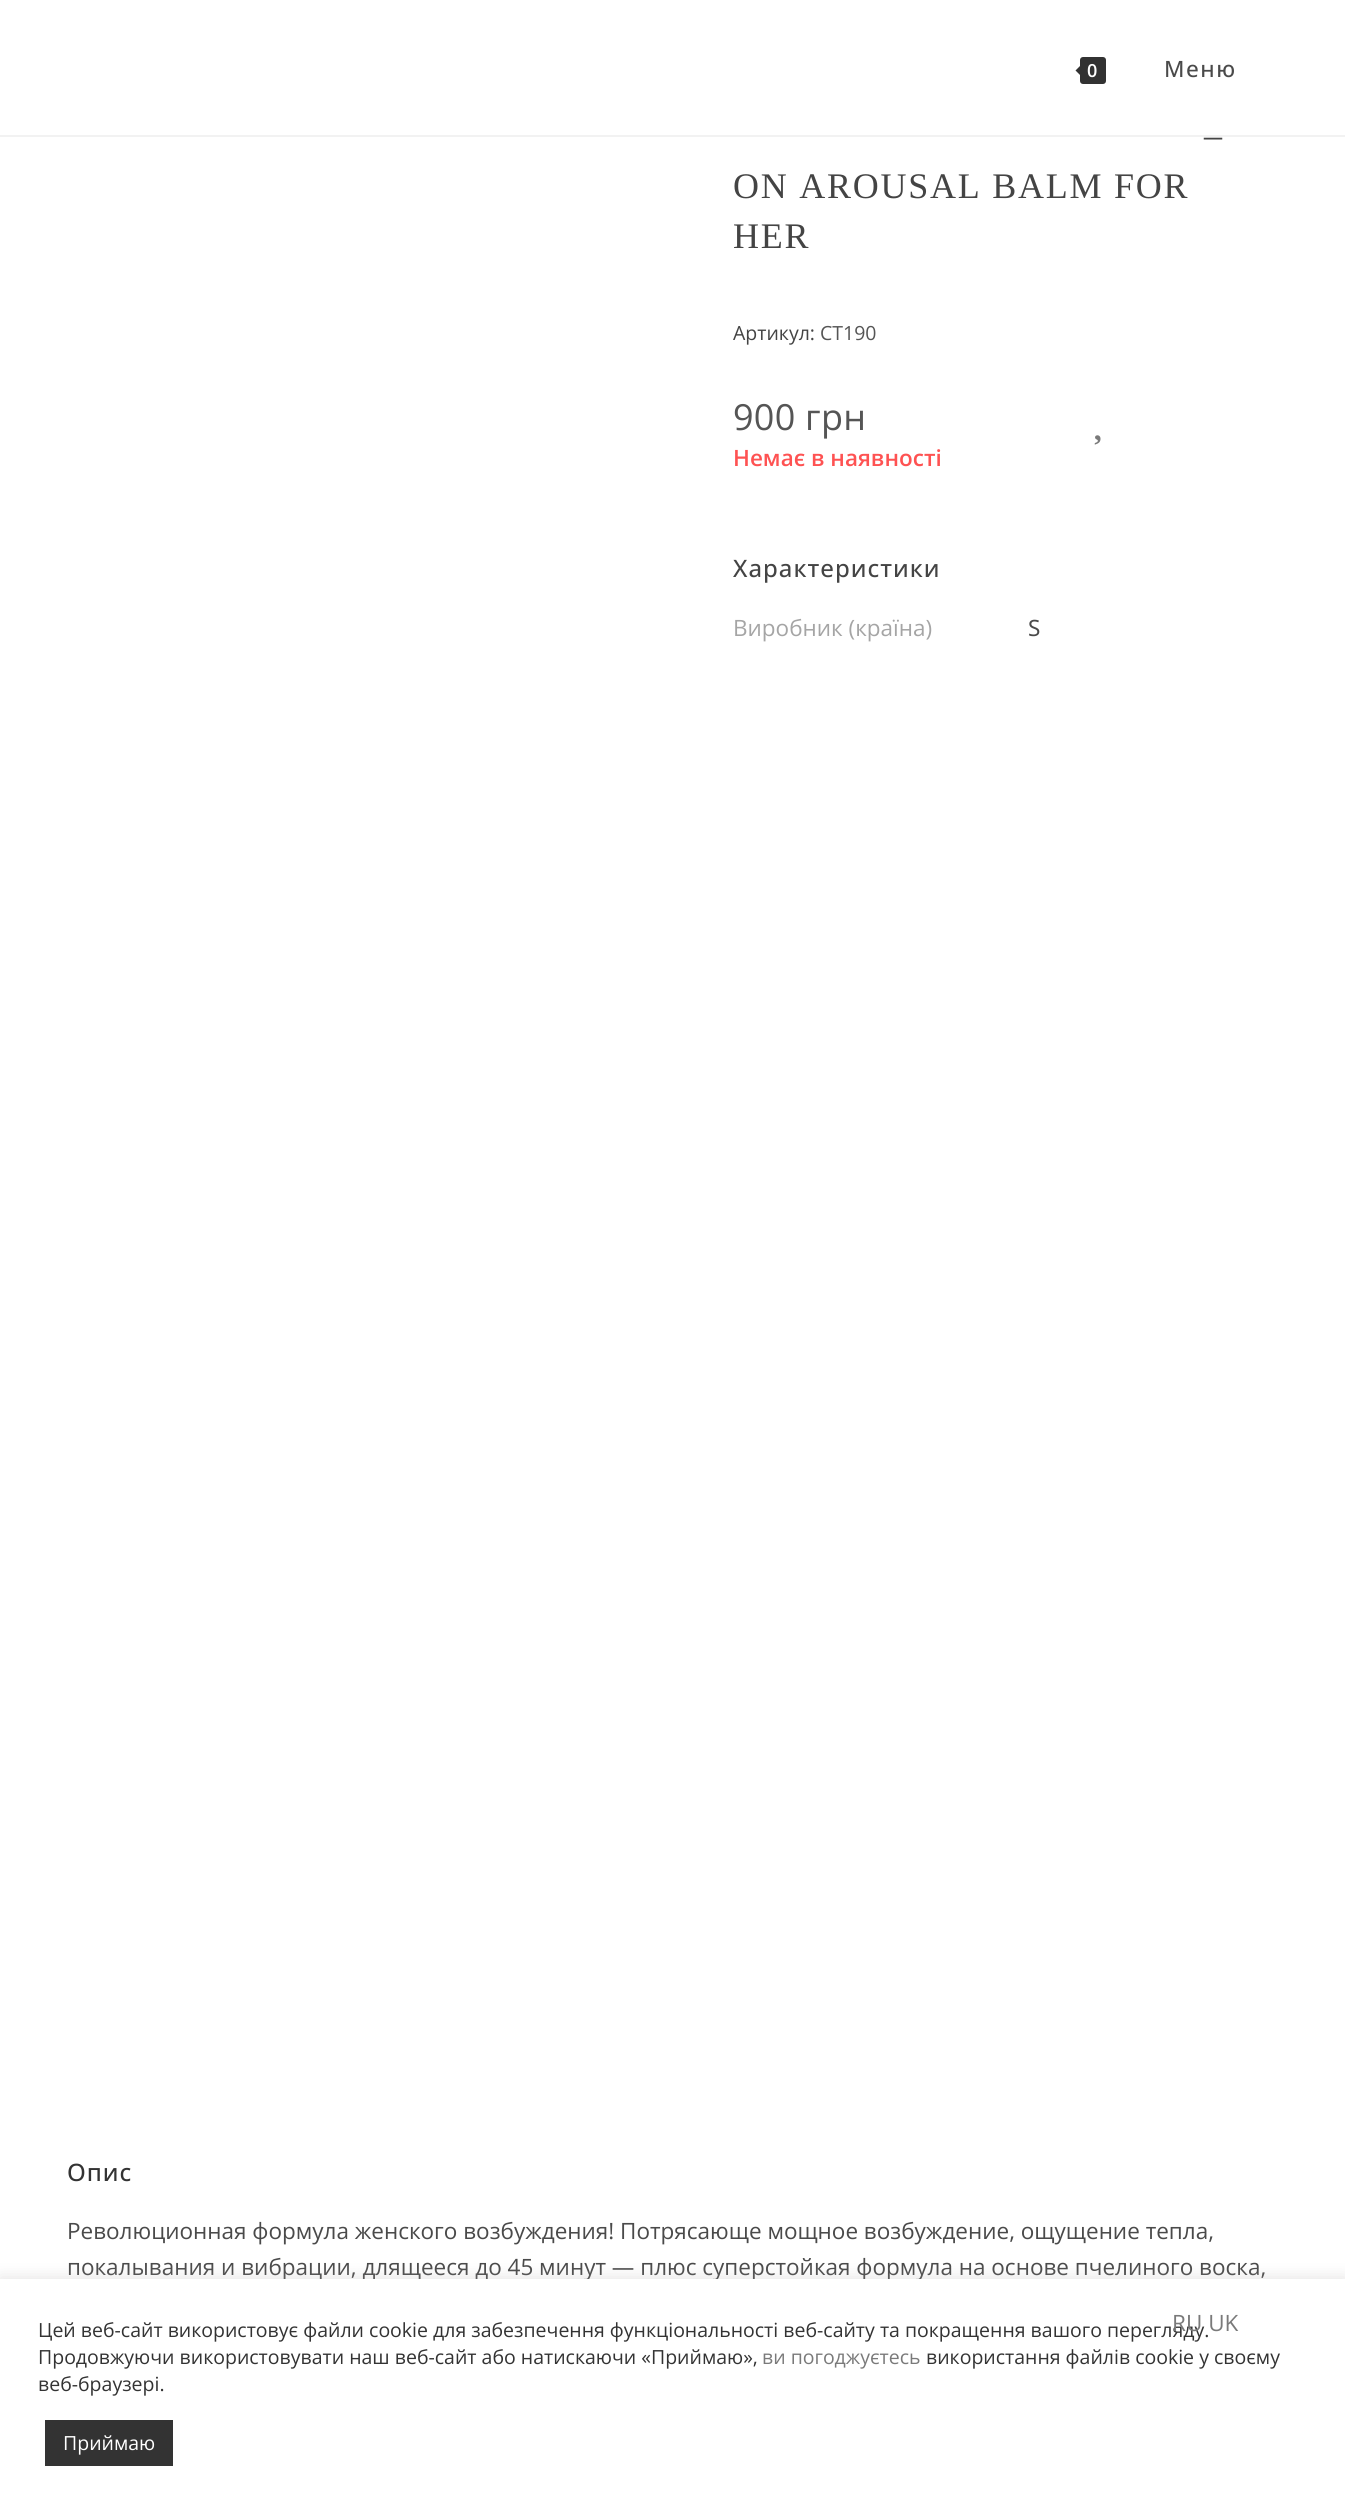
#include <cairo.h>
#include <math.h>
#include <stddef.h>

typedef struct { double x, y; const char *s; } line_t;

static void ink(cairo_t *ctx, unsigned color) {
    cairo_set_source_rgb(ctx, (color >> 16) / 255.0, (color >> 8 & 255) / 255.0, (color & 255) / 255.0);
}

static void write_spaced(cairo_t *ctx, double x, double y, const char *s, double letter, double word) {
    cairo_move_to(ctx, x, y);
    while (*s) {
        char ch[5] = {0};
        int n = 0;
        do ch[n++] = *s++; while ((*s & 0xC0) == 0x80);
        cairo_show_text(ctx, ch);
        cairo_rel_move_to(ctx, letter + word * (*ch == ' '), 0);
    }
}

static void round_path(cairo_t *ctx, double x, double y, double w, double h, double r) {
    cairo_new_sub_path(ctx);
    cairo_arc(ctx, x + w - r, y + h - r, r, 0, M_PI / 2);
    cairo_arc(ctx, x + r, y + h - r, r, M_PI / 2, M_PI);
    cairo_arc(ctx, x + r, y + r, r, M_PI, 1.5 * M_PI);
    cairo_arc(ctx, x + w - r, y + r, r, 1.5 * M_PI, 2 * M_PI);
    cairo_close_path(ctx);
}

static void blur_box(cairo_t *ctx, double x, double y, double w, double h, double r, double blur, double alpha) {
    cairo_push_group_with_content(ctx, CAIRO_CONTENT_ALPHA);
    cairo_set_operator(ctx, CAIRO_OPERATOR_SOURCE);
    for (int i = 15; i >= -15 && fmin(w, h) + blur * i / 3 > 0; i -= 2) {
        double e = blur * i / 6;
        cairo_set_source_rgba(ctx, 0, 0, 0, alpha * erfc((i - 1) / 8.5) / 2);
        round_path(ctx, x - e, y - e, w + 2 * e, h + 2 * e, fmax(0, fmin(r + e + blur * .6, fmin(w, h) / 2 + e)));
        cairo_fill(ctx);
    }
    cairo_pattern_t *soft = cairo_pop_group(ctx);
    cairo_mask(ctx, soft);
    cairo_pattern_destroy(soft);
}

static void paste(cairo_t *ctx, const char *path, double x, double y, double w, double h) {
    cairo_surface_t *image = cairo_image_surface_create_from_png(path);
    cairo_save(ctx);
    cairo_set_source_surface(ctx, image, x, y);
    cairo_rectangle(ctx, x, y, w, h);
    cairo_fill(ctx);
    cairo_restore(ctx);
    cairo_surface_destroy(image);
}

int main(void) {
    cairo_surface_t *surface = cairo_image_surface_create(CAIRO_FORMAT_RGB24, 1345, 2510);
    cairo_t *ctx = cairo_create(surface);
    cairo_font_options_t *options = cairo_font_options_create();
    cairo_font_options_set_hint_metrics(options, CAIRO_HINT_METRICS_OFF);
    cairo_font_options_set_hint_style(options, CAIRO_HINT_STYLE_NONE);
    cairo_set_font_options(ctx, options);
    cairo_set_miter_limit(ctx, 4);
    ink(ctx, 0xFFFFFF);
    cairo_paint(ctx);
    ink(ctx, 0xF2F2F2);
    cairo_rectangle(ctx, 0, 135, 1345, 2);
    cairo_fill(ctx);
    ink(ctx, 0x323232);
    round_path(ctx, 1080, 57, 26, 27, 3);
    cairo_fill(ctx);
    cairo_new_path(ctx);
    cairo_move_to(ctx, 1083, 63);
    cairo_line_to(ctx, 1083, 78);
    cairo_line_to(ctx, 1075.5, 70.5);
    cairo_close_path(ctx);
    cairo_fill(ctx);
    cairo_select_font_face(ctx, "Open Sans SemiBold", CAIRO_FONT_SLANT_NORMAL, CAIRO_FONT_WEIGHT_NORMAL);
    cairo_set_font_size(ctx, 18);
    ink(ctx, 0xFFFFFF);
    write_spaced(ctx, 1087, 77, "0", 1.5, 0);
    cairo_select_font_face(ctx, "Open Sans Medium", CAIRO_FONT_SLANT_NORMAL, CAIRO_FONT_WEIGHT_NORMAL);
    cairo_set_font_size(ctx, 22.5);
    ink(ctx, 0x4A4A4A);
    write_spaced(ctx, 1164, 77, "Меню", 1.5, 0);
    cairo_select_font_face(ctx, "Liberation Serif", CAIRO_FONT_SLANT_NORMAL, CAIRO_FONT_WEIGHT_NORMAL);
    cairo_set_font_size(ctx, 36);
    ink(ctx, 0x444444);
    {
        static const line_t items[] = {
            {1204, 147, "–"},
            {733, 198, "ON AROUSAL BALM FOR"},
            {733, 248, "HER"},
        };
        for (size_t i = 0; i < sizeof items / sizeof *items; i++) {
            write_spaced(ctx, items[i].x, items[i].y, items[i].s, 1.75, 0);
        }
    }
    cairo_select_font_face(ctx, "Open Sans", CAIRO_FONT_SLANT_NORMAL, CAIRO_FONT_WEIGHT_NORMAL);
    cairo_set_font_size(ctx, 19.5);
    cairo_move_to(ctx, 733, 340);
    cairo_show_text(ctx, "Артикул:");
    ink(ctx, 0x555555);
    cairo_move_to(ctx, 820, 340);
    cairo_show_text(ctx, "CT190");
    cairo_set_font_size(ctx, 36);
    write_spaced(ctx, 733, 430, "900 грн", 0.25, 0);
    paste(ctx, "media/1.png", 1094, 435, 7, 10);
    cairo_select_font_face(ctx, "Open Sans SemiBold", CAIRO_FONT_SLANT_NORMAL, CAIRO_FONT_WEIGHT_NORMAL);
    cairo_set_font_size(ctx, 22.5);
    ink(ctx, 0xFE5252);
    cairo_move_to(ctx, 733, 466);
    cairo_show_text(ctx, "Немає в наявності");
    cairo_select_font_face(ctx, "Open Sans Medium", CAIRO_FONT_SLANT_NORMAL, CAIRO_FONT_WEIGHT_NORMAL);
    cairo_set_font_size(ctx, 24);
    ink(ctx, 0x444444);
    write_spaced(ctx, 733, 577, "Характеристики", 1, 0);
    cairo_select_font_face(ctx, "Open Sans", CAIRO_FONT_SLANT_NORMAL, CAIRO_FONT_WEIGHT_NORMAL);
    cairo_set_font_size(ctx, 22.5);
    ink(ctx, 0xA5A5A5);
    cairo_move_to(ctx, 733, 636);
    cairo_show_text(ctx, "Виробник (країна)");
    cairo_select_font_face(ctx, "Noto Sans", CAIRO_FONT_SLANT_NORMAL, CAIRO_FONT_WEIGHT_NORMAL);
    ink(ctx, 0x4A4A4A);
    cairo_move_to(ctx, 1028, 636);
    cairo_show_text(ctx, "S");
    cairo_select_font_face(ctx, "Open Sans Medium", CAIRO_FONT_SLANT_NORMAL, CAIRO_FONT_WEIGHT_NORMAL);
    cairo_set_font_size(ctx, 24);
    ink(ctx, 0x333333);
    write_spaced(ctx, 67, 2181, "Опис", 1, 0);
    cairo_select_font_face(ctx, "Open Sans", CAIRO_FONT_SLANT_NORMAL, CAIRO_FONT_WEIGHT_NORMAL);
    cairo_set_font_size(ctx, 22.5);
    ink(ctx, 0x4A4A4A);
    cairo_move_to(ctx, 67, 2239);
    cairo_show_text(ctx, "Революционная формула женского возбуждения! Потрясающе мощное возбуждение, ощущение тепла,");
    cairo_move_to(ctx, 67, 2275);
    cairo_show_text(ctx, "покалывания и вибрации, длящееся до 45 минут — плюс суперстойкая формула на основе пчелиного воска,");
    ink(ctx, 0xACABAB);
    blur_box(ctx, 0, 2277, 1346, 233, 0, 7.5, 0.3);
    ink(ctx, 0xFFFFFF);
    cairo_rectangle(ctx, 0, 2279, 1345, 231);
    cairo_fill(ctx);
    cairo_set_font_size(ctx, 19.5);
    ink(ctx, 0x333333);
    cairo_move_to(ctx, 38, 2337);
    cairo_show_text(ctx, "Цей веб-сайт використовує файли cookie для забезпечення функціональності веб-сайту та покращення вашого перегляду.");
    cairo_set_font_size(ctx, 22.5);
    ink(ctx, 0x7A7A7A);
    cairo_move_to(ctx, 1172, 2331);
    cairo_show_text(ctx, "RU UK");
    cairo_set_font_size(ctx, 19.5);
    ink(ctx, 0x333333);
    cairo_move_to(ctx, 38, 2364);
    cairo_show_text(ctx, "Продовжуючи використовувати наш веб-сайт або натискаючи «Приймаю»,");
    ink(ctx, 0x7A7A7A);
    cairo_move_to(ctx, 762, 2364);
    cairo_show_text(ctx, "ви погоджуєтесь");
    ink(ctx, 0x333333);
    cairo_move_to(ctx, 926, 2364);
    cairo_show_text(ctx, "використання файлів cookie у своєму");
    cairo_move_to(ctx, 38, 2391);
    cairo_show_text(ctx, "веб-браузері.");
    cairo_rectangle(ctx, 45, 2420, 128, 46);
    cairo_fill(ctx);
    ink(ctx, 0xFFFFFF);
    cairo_move_to(ctx, 63, 2450);
    cairo_show_text(ctx, "Приймаю");
    cairo_surface_write_to_png(surface, "image.png");
    cairo_font_options_destroy(options);
    cairo_destroy(ctx);
    cairo_surface_destroy(surface);
    return 0;
}
